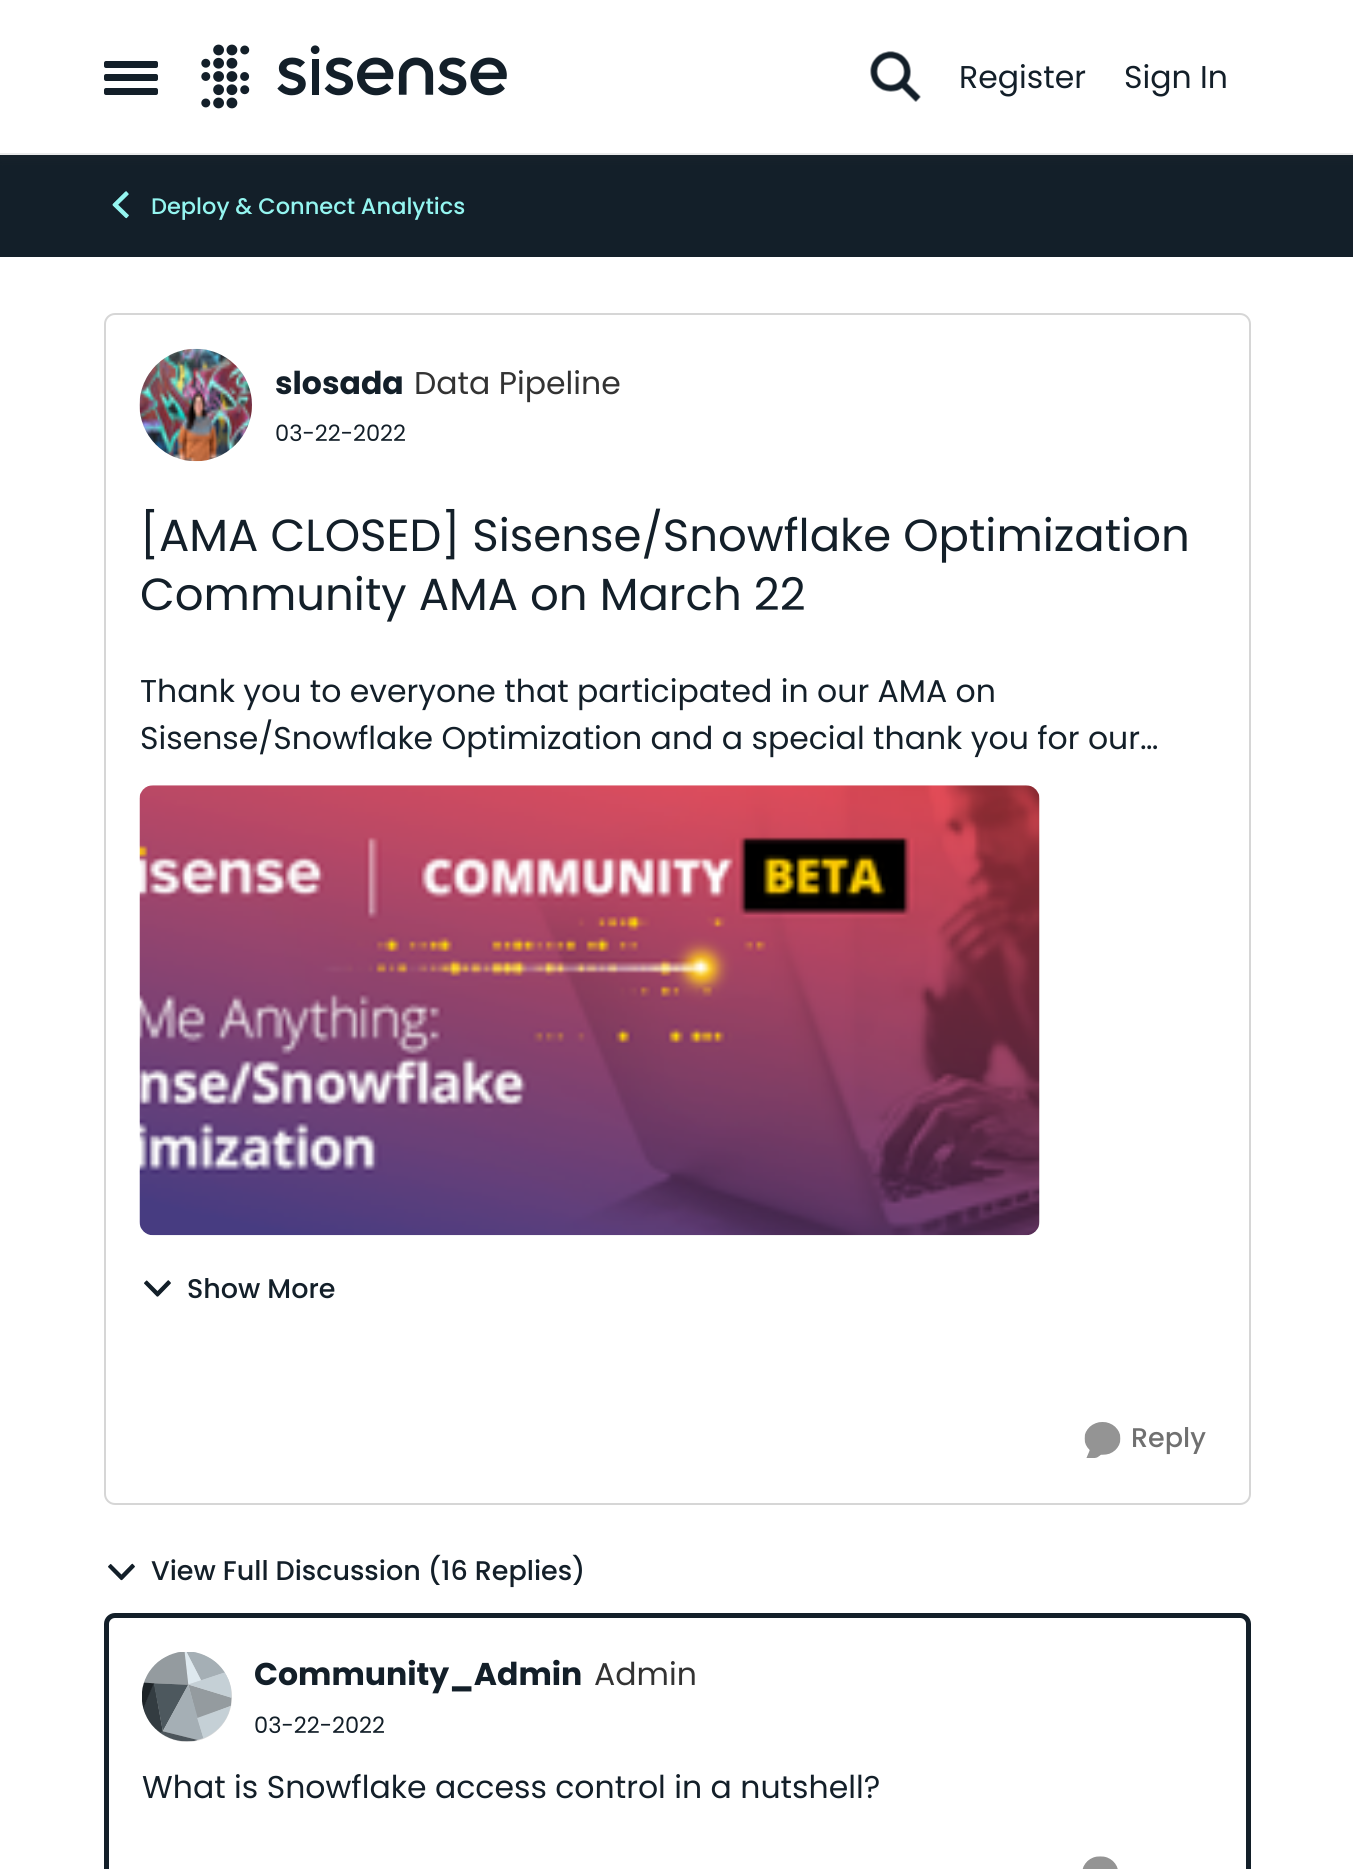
#include <cairo.h>
#include <math.h>
#include <stddef.h>


static void ink(cairo_t *ctx, unsigned color) {
    cairo_set_source_rgb(ctx, (color >> 16) / 255.0, (color >> 8 & 255) / 255.0, (color & 255) / 255.0);
}

static void round_path(cairo_t *ctx, double x, double y, double w, double h, double r) {
    cairo_new_sub_path(ctx);
    cairo_arc(ctx, x + w - r, y + h - r, r, 0, M_PI / 2);
    cairo_arc(ctx, x + r, y + h - r, r, M_PI / 2, M_PI);
    cairo_arc(ctx, x + r, y + r, r, M_PI, 1.5 * M_PI);
    cairo_arc(ctx, x + w - r, y + r, r, 1.5 * M_PI, 2 * M_PI);
    cairo_close_path(ctx);
}

static void blur_box(cairo_t *ctx, double x, double y, double w, double h, double r, double blur, double alpha) {
    cairo_push_group_with_content(ctx, CAIRO_CONTENT_ALPHA);
    cairo_set_operator(ctx, CAIRO_OPERATOR_SOURCE);
    for (int i = 15; i >= -15 && fmin(w, h) + blur * i / 3 > 0; i -= 2) {
        double e = blur * i / 6;
        cairo_set_source_rgba(ctx, 0, 0, 0, alpha * erfc((i - 1) / 8.5) / 2);
        round_path(ctx, x - e, y - e, w + 2 * e, h + 2 * e, fmax(0, fmin(r + e + blur * .6, fmin(w, h) / 2 + e)));
        cairo_fill(ctx);
    }
    cairo_pattern_t *soft = cairo_pop_group(ctx);
    cairo_mask(ctx, soft);
    cairo_pattern_destroy(soft);
}

static void paste(cairo_t *ctx, const char *path, double x, double y, double w, double h) {
    cairo_surface_t *image = cairo_image_surface_create_from_png(path);
    cairo_save(ctx);
    cairo_set_source_surface(ctx, image, x, y);
    cairo_rectangle(ctx, x, y, w, h);
    cairo_fill(ctx);
    cairo_restore(ctx);
    cairo_surface_destroy(image);
}

int main(void) {
    cairo_surface_t *surface = cairo_image_surface_create(CAIRO_FORMAT_RGB24, 1353, 1869);
    cairo_t *ctx = cairo_create(surface);
    cairo_font_options_t *options = cairo_font_options_create();
    cairo_font_options_set_hint_metrics(options, CAIRO_HINT_METRICS_OFF);
    cairo_font_options_set_hint_style(options, CAIRO_HINT_STYLE_NONE);
    cairo_set_font_options(ctx, options);
    cairo_set_miter_limit(ctx, 4);
    ink(ctx, 0xFFFFFF);
    cairo_paint(ctx);
    ink(ctx, 0x131F29);
    cairo_rectangle(ctx, 0, 155, 1353, 102);
    cairo_fill(ctx);
    ink(ctx, 0x333333);
    blur_box(ctx, 0, 5, 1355, 155, 0, 4.5, 0.12);
    ink(ctx, 0xFFFFFF);
    cairo_rectangle(ctx, 0, 0, 1353, 153);
    cairo_fill(ctx);
    ink(ctx, 0xEBEBEB);
    cairo_rectangle(ctx, 0, 153, 1353, 2);
    cairo_fill(ctx);
    ink(ctx, 0x131F29);
    round_path(ctx, 104, 61, 54, 7, 2);
    cairo_fill(ctx);
    round_path(ctx, 104, 74, 54, 7, 2);
    cairo_fill(ctx);
    round_path(ctx, 104, 88, 54, 7, 2);
    cairo_fill(ctx);
    paste(ctx, "media/1.png", 201, 44, 306, 65);
    paste(ctx, "media/2.png", 870, 51, 51, 51);
    cairo_select_font_face(ctx, "Poppins", CAIRO_FONT_SLANT_NORMAL, CAIRO_FONT_WEIGHT_NORMAL);
    cairo_set_font_size(ctx, 31.5);
    cairo_move_to(ctx, 959, 88);
    cairo_show_text(ctx, "Register");
    cairo_move_to(ctx, 1124, 88);
    cairo_show_text(ctx, "Sign In");
    paste(ctx, "media/3.png", 112, 191, 17, 28);
    cairo_select_font_face(ctx, "Poppins Medium", CAIRO_FONT_SLANT_NORMAL, CAIRO_FONT_WEIGHT_NORMAL);
    cairo_set_font_size(ctx, 22.5);
    ink(ctx, 0x94F5F0);
    cairo_move_to(ctx, 151, 214);
    cairo_show_text(ctx, "Deploy & Connect Analytics");
    round_path(ctx, 105, 314, 1145, 1190, 10);
    ink(ctx, 0xD6D6D6);
    cairo_stroke(ctx);
    paste(ctx, "media/4.png", 139, 348, 113, 114);
    cairo_select_font_face(ctx, "Poppins", CAIRO_FONT_SLANT_NORMAL, CAIRO_FONT_WEIGHT_BOLD);
    cairo_set_font_size(ctx, 31.5);
    ink(ctx, 0x131F29);
    cairo_move_to(ctx, 275, 394);
    cairo_show_text(ctx, "slosada");
    cairo_select_font_face(ctx, "Poppins", CAIRO_FONT_SLANT_NORMAL, CAIRO_FONT_WEIGHT_NORMAL);
    ink(ctx, 0x333333);
    cairo_move_to(ctx, 414, 394);
    cairo_show_text(ctx, "Data Pipeline");
    cairo_set_font_size(ctx, 22.5);
    ink(ctx, 0x131F29);
    cairo_move_to(ctx, 275, 441);
    cairo_show_text(ctx, "03-22-2022");
    cairo_set_font_size(ctx, 45);
    cairo_move_to(ctx, 140, 551);
    cairo_show_text(ctx, "[AMA CLOSED] Sisense/Snowflake Optimization");
    cairo_move_to(ctx, 140, 610);
    cairo_show_text(ctx, "Community AMA on March 22");
    cairo_set_font_size(ctx, 31.5);
    cairo_move_to(ctx, 140, 702);
    cairo_show_text(ctx, "Thank you to everyone that participated in our AMA on");
    cairo_move_to(ctx, 140, 749);
    cairo_show_text(ctx, "Sisense/Snowflake Optimization and a special thank you for our…");
    paste(ctx, "media/5.png", 139, 785, 901, 451);
    paste(ctx, "media/6.png", 144, 1280, 27, 17);
    cairo_select_font_face(ctx, "Poppins Medium", CAIRO_FONT_SLANT_NORMAL, CAIRO_FONT_WEIGHT_NORMAL);
    cairo_set_font_size(ctx, 27);
    cairo_move_to(ctx, 187, 1298);
    cairo_show_text(ctx, "Show More");
    paste(ctx, "media/7.png", 1084, 1422, 37, 36);
    ink(ctx, 0x707070);
    cairo_move_to(ctx, 1131, 1447);
    cairo_show_text(ctx, "Reply");
    paste(ctx, "media/8.png", 108, 1563, 27, 18);
    ink(ctx, 0x131F29);
    cairo_move_to(ctx, 151, 1580);
    cairo_show_text(ctx, "View Full Discussion (16 Replies)");
    round_path(ctx, 106.5, 1615.5, 1142, 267, 8.5);
    cairo_set_line_width(ctx, 5);
    cairo_stroke(ctx);
    ink(ctx, 0xD9D9D9);
    cairo_arc(ctx, 187, 1697, 45, 0, 2 * M_PI);
    cairo_fill(ctx);
    paste(ctx, "media/9.png", 142, 1652, 90, 90);
    cairo_select_font_face(ctx, "Poppins", CAIRO_FONT_SLANT_NORMAL, CAIRO_FONT_WEIGHT_BOLD);
    cairo_set_font_size(ctx, 31.5);
    ink(ctx, 0x131F29);
    cairo_move_to(ctx, 254, 1685);
    cairo_show_text(ctx, "Community_Admin");
    cairo_select_font_face(ctx, "Poppins", CAIRO_FONT_SLANT_NORMAL, CAIRO_FONT_WEIGHT_NORMAL);
    ink(ctx, 0x333333);
    cairo_move_to(ctx, 594, 1685);
    cairo_show_text(ctx, "Admin");
    cairo_set_font_size(ctx, 22.5);
    ink(ctx, 0x131F29);
    cairo_move_to(ctx, 254, 1733);
    cairo_show_text(ctx, "03-22-2022");
    cairo_set_font_size(ctx, 31.5);
    cairo_move_to(ctx, 142, 1798);
    cairo_show_text(ctx, "What is Snowflake access control in a nutshell?");
    paste(ctx, "media/10.png", 1082, 1856, 36, 13);
    cairo_surface_write_to_png(surface, "image.png");
    cairo_font_options_destroy(options);
    cairo_destroy(ctx);
    cairo_surface_destroy(surface);
    return 0;
}
